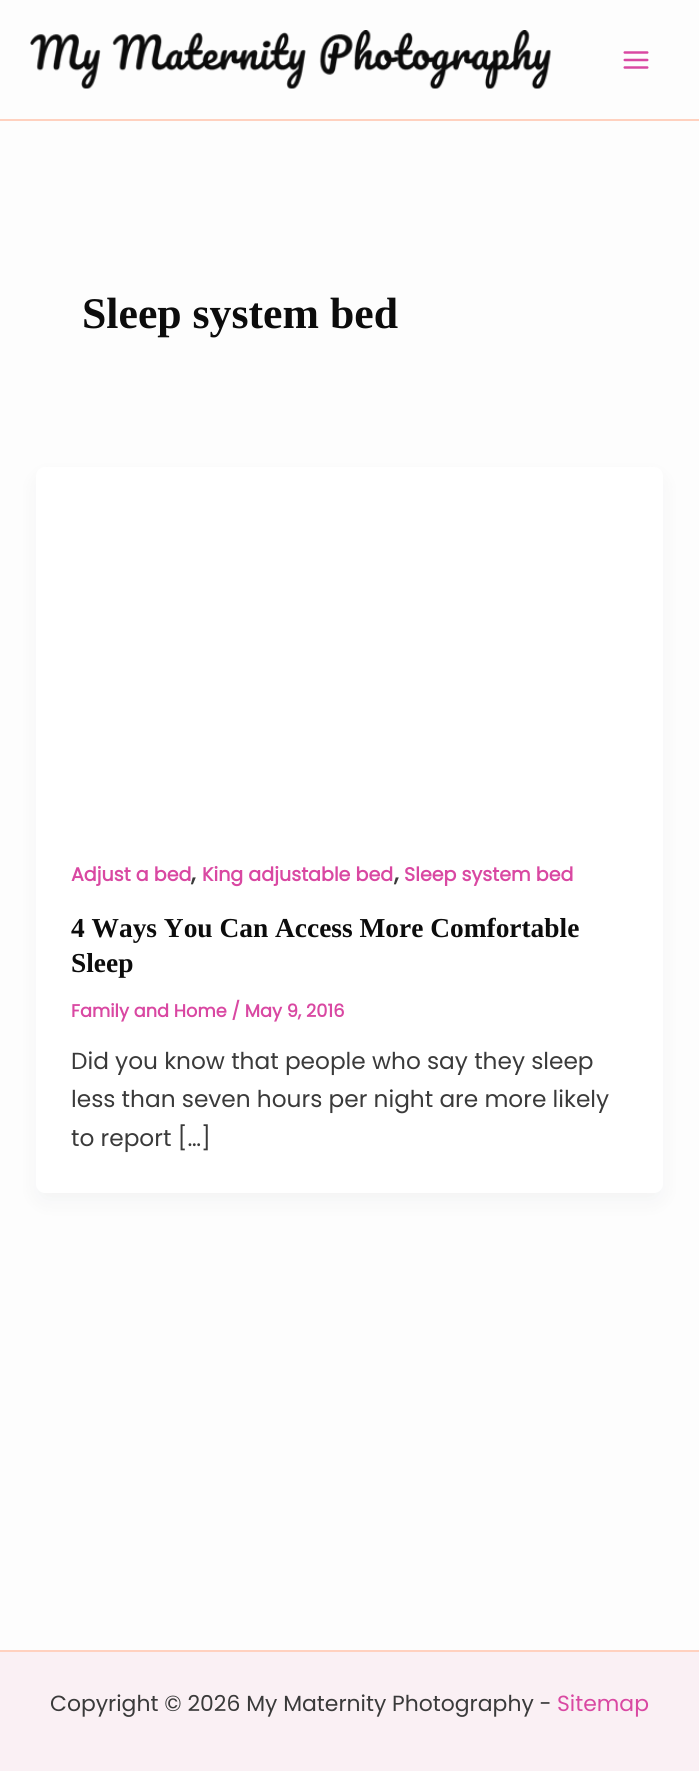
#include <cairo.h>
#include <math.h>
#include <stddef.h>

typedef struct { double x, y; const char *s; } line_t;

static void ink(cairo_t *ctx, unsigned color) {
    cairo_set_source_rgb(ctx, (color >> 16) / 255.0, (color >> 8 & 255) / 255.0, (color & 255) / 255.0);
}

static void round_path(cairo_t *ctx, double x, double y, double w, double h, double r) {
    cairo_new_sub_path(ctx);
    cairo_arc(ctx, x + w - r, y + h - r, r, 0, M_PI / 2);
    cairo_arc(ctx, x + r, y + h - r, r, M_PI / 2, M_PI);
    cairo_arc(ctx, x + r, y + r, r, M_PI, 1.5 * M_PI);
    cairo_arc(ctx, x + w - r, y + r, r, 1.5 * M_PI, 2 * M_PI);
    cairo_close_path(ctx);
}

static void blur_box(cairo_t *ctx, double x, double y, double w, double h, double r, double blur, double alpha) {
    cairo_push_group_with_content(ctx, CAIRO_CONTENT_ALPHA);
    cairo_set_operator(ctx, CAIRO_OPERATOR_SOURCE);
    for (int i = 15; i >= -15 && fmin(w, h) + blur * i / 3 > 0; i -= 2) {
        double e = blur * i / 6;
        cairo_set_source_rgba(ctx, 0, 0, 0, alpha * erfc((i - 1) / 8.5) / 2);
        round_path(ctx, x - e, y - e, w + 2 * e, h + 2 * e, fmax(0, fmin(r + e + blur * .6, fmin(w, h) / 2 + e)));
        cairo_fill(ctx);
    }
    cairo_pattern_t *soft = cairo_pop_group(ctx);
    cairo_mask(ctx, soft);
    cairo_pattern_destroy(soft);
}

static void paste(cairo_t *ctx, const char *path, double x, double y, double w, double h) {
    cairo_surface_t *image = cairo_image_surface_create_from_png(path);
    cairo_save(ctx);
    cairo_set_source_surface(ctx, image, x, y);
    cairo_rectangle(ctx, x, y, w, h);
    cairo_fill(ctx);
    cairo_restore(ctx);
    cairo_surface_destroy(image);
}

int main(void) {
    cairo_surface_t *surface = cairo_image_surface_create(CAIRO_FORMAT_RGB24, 699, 1771);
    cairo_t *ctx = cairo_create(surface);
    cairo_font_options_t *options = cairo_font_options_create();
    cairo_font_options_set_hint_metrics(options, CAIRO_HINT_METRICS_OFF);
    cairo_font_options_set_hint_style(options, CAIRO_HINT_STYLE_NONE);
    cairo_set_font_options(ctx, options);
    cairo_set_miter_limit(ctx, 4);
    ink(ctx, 0xFDFDFD);
    cairo_paint(ctx);
    ink(ctx, 0xFFD1BF);
    cairo_rectangle(ctx, 0, 119, 699, 2);
    cairo_fill(ctx);
    paste(ctx, "media/1.png", 30, 30, 521, 59);
    paste(ctx, "media/2.png", 623, 51, 26, 18);
    cairo_select_font_face(ctx, "Liberation Serif", CAIRO_FONT_SLANT_NORMAL, CAIRO_FONT_WEIGHT_BOLD);
    cairo_set_font_size(ctx, 43.75);
    ink(ctx, 0x0C0C0C);
    cairo_move_to(ctx, 82, 328);
    cairo_show_text(ctx, "Sleep system bed");
    ink(ctx, 0x101828);
    blur_box(ctx, 39, 479, 621, 720, 6, 11, 0.05);
    ink(ctx, 0xFFFFFF);
    round_path(ctx, 36, 467, 627, 726, 9);
    cairo_fill(ctx);
    cairo_select_font_face(ctx, "Poppins", CAIRO_FONT_SLANT_NORMAL, CAIRO_FONT_WEIGHT_BOLD);
    cairo_set_font_size(ctx, 19.1);
    ink(ctx, 0xD948A2);
    cairo_move_to(ctx, 71, 881);
    cairo_show_text(ctx, "Adjust a bed");
    cairo_set_font_size(ctx, 23.25);
    ink(ctx, 0x3A3A3A);
    cairo_move_to(ctx, 191, 881);
    cairo_show_text(ctx, ",");
    cairo_set_font_size(ctx, 19.1);
    ink(ctx, 0xD948A2);
    cairo_move_to(ctx, 202, 881);
    cairo_show_text(ctx, "King adjustable bed");
    cairo_set_font_size(ctx, 23.25);
    ink(ctx, 0x3A3A3A);
    cairo_move_to(ctx, 394, 881);
    cairo_show_text(ctx, ",");
    cairo_set_font_size(ctx, 19.1);
    ink(ctx, 0xD948A2);
    cairo_move_to(ctx, 404, 881);
    cairo_show_text(ctx, "Sleep system bed");
    cairo_select_font_face(ctx, "Liberation Serif", CAIRO_FONT_SLANT_NORMAL, CAIRO_FONT_WEIGHT_BOLD);
    cairo_set_font_size(ctx, 27.4);
    ink(ctx, 0x0C0C0C);
    cairo_move_to(ctx, 71, 937);
    cairo_show_text(ctx, "4 Ways You Can Access More Comfortable");
    cairo_move_to(ctx, 71, 972);
    cairo_show_text(ctx, "Sleep");
    cairo_select_font_face(ctx, "Poppins", CAIRO_FONT_SLANT_NORMAL, CAIRO_FONT_WEIGHT_BOLD);
    cairo_set_font_size(ctx, 17.75);
    ink(ctx, 0xD948A2);
    cairo_move_to(ctx, 71, 1017);
    cairo_show_text(ctx, "Family and Home / May 9, 2016");
    cairo_select_font_face(ctx, "Poppins", CAIRO_FONT_SLANT_NORMAL, CAIRO_FONT_WEIGHT_NORMAL);
    cairo_set_font_size(ctx, 23.25);
    ink(ctx, 0x3A3A3A);
    {
        static const line_t items[] = {
            {71, 1069, "Did you know that people who say they sleep"},
            {71, 1107, "less than seven hours per night are more likely"},
            {71, 1146, "to report […]"},
        };
        for (size_t i = 0; i < sizeof items / sizeof *items; i++) {
            cairo_move_to(ctx, items[i].x, items[i].y);
            cairo_show_text(ctx, items[i].s);
        }
    }
    ink(ctx, 0xFAF0F4);
    cairo_rectangle(ctx, 0, 1652, 699, 119);
    cairo_fill(ctx);
    ink(ctx, 0xFFD1BF);
    cairo_rectangle(ctx, 0, 1650, 699, 2);
    cairo_fill(ctx);
    cairo_set_font_size(ctx, 21.9);
    ink(ctx, 0x3A3A3A);
    cairo_move_to(ctx, 50, 1711);
    cairo_show_text(ctx, "Copyright © 2026 My Maternity Photography -");
    ink(ctx, 0xD948A2);
    cairo_move_to(ctx, 557, 1711);
    cairo_show_text(ctx, "Sitemap");
    cairo_surface_write_to_png(surface, "image.png");
    cairo_font_options_destroy(options);
    cairo_destroy(ctx);
    cairo_surface_destroy(surface);
    return 0;
}
